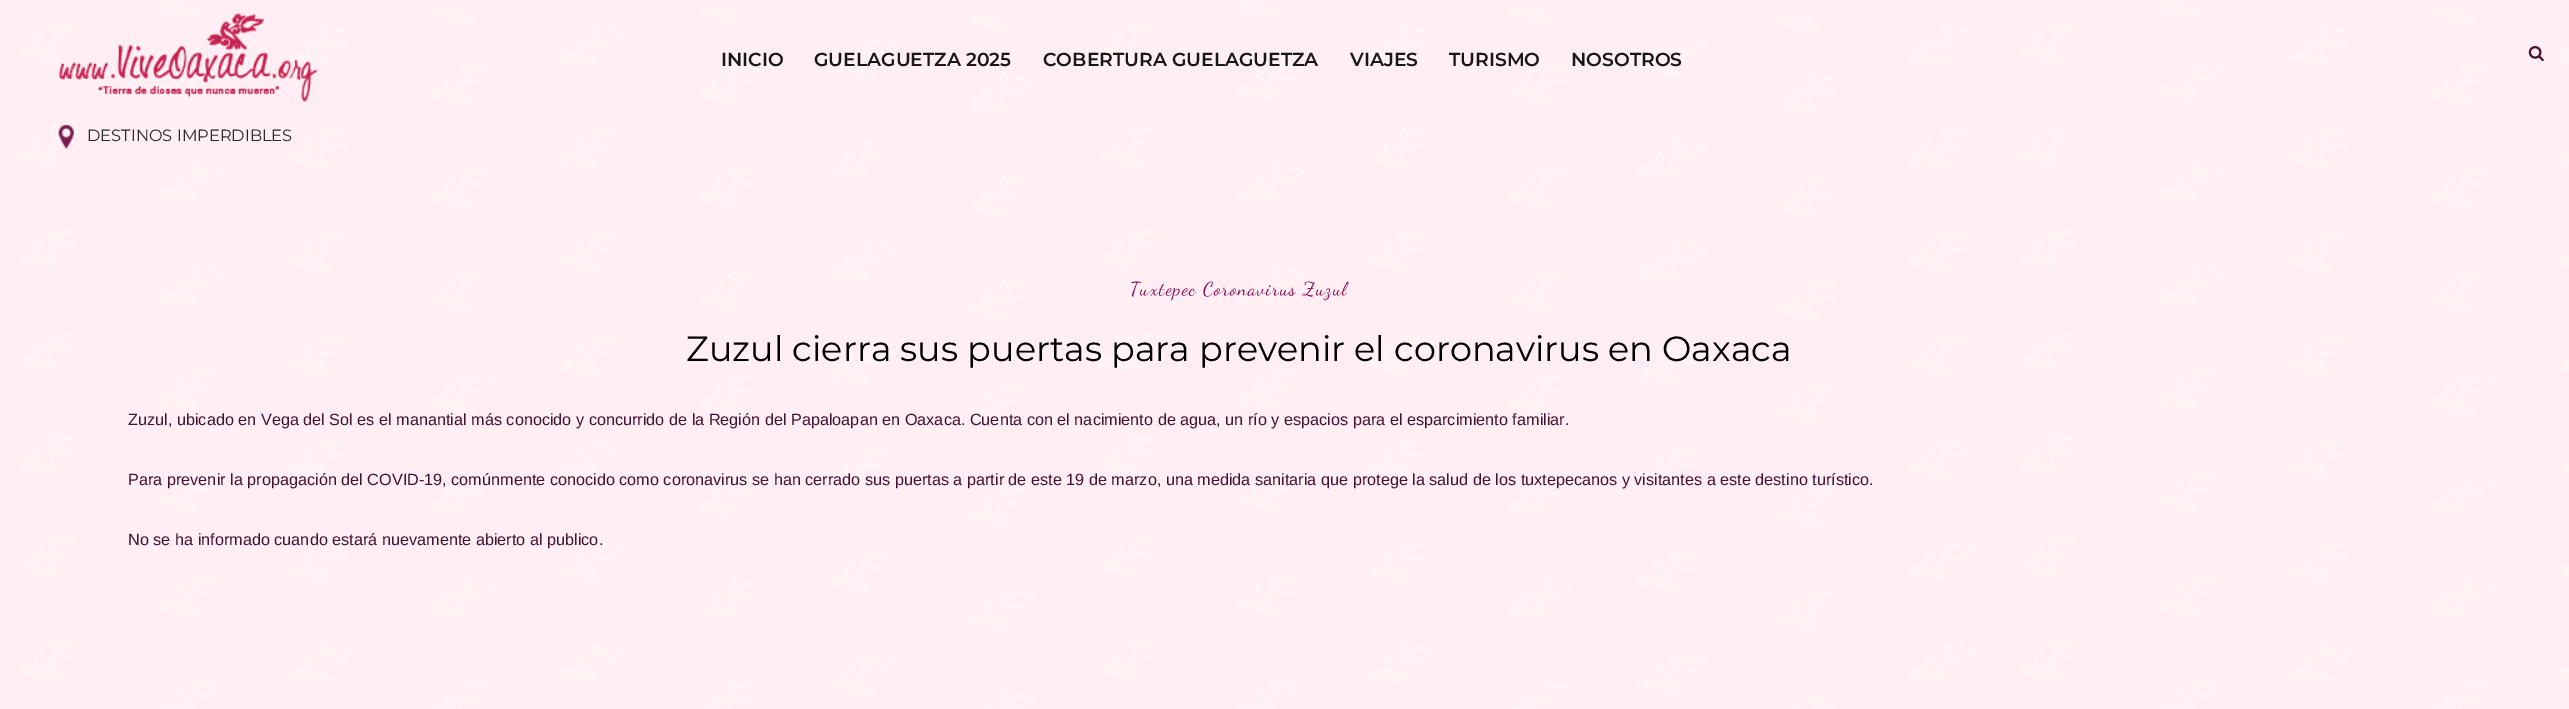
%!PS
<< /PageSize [2569 709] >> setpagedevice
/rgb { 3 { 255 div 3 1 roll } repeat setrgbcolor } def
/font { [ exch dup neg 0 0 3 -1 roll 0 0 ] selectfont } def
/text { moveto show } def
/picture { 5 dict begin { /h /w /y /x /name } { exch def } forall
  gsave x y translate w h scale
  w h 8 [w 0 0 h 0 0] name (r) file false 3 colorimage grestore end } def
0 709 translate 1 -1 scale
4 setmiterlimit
255 255 255 rgb
0 0 2569 709 rectfill
(img_01.rgb) 0 0 2569 709 picture
(img_02.rgb) 2528 46 16 16 picture
(img_03.rgb) 58 13 260 89 picture
(img_04.rgb) 58 124 16 25 picture
/Montserrat-SemiBold 18.75 font
23 23 23 rgb
(INICIO) 721 66 text
(GUELAGUETZA 2025) 814 66 text
(COBERTURA GUELAGUETZA) 1043 66 text
(VIAJES) 1350 66 text
(TURISMO) 1449 66 text
(NOSOTROS) 1571 66 text
/Montserrat-Regular 16.25 font
40 40 40 rgb
(DESTINOS IMPERDIBLES) 87 141 text
/DancingScript-Regular 18.75 font
138 7 81 rgb
1130 295 moveto 1.25 0 (Tuxtepec Coronavirus Zuzul) ashow
/Montserrat-Regular 35 font
0 0 0 rgb
(Zuzul cierra sus puertas para prevenir el coronavirus en Oaxaca) 686 361 text
/LiberationSans-Regular 16.25 font
68 17 48 rgb
(Zuzul, ubicado en Vega del Sol es el manantial más conocido y concurrido de la Región del Papaloapan en Oaxaca. Cuenta con el nacimiento de agua, un río y espacios para el esparcimiento familiar.) 128 425 text
(Para prevenir la propagación del COVID-19, comúnmente conocido como coronavirus se han cerrado sus puertas a partir de este 19 de marzo, una medida sanitaria que protege la salud de los tuxtepecanos y visitantes a este destino turístico.) 128 485 text
(No se ha informado cuando estará nuevamente abierto al publico.) 128 545 text
showpage
